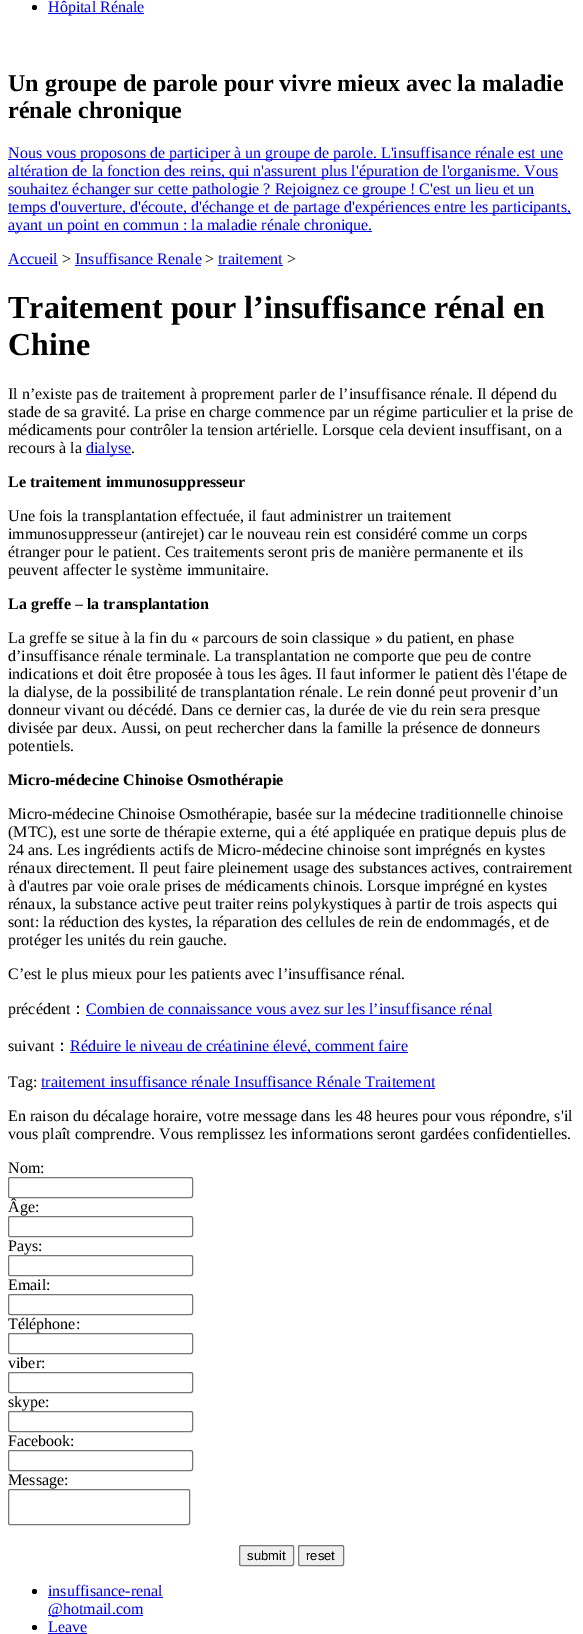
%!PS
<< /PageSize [583 1634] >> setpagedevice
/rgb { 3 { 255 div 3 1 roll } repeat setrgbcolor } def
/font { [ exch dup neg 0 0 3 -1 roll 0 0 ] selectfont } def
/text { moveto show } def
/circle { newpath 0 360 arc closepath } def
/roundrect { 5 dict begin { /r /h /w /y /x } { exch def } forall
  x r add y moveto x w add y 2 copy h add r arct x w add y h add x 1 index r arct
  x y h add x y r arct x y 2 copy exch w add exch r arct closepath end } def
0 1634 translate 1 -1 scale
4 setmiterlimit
255 255 255 rgb
0 0 583 1634 rectfill
0 0 0 rgb
34.5 7.5 2.5 circle fill
0 0 238 rgb
48 13 96 1 rectfill
8 159 555 1 rectfill
8 177 550 1 rectfill
8 195 526 1 rectfill
8 213 563 1 rectfill
8 231 364 1 rectfill
8 265 50 1 rectfill
75 265 126 1 rectfill
218 265 65 1 rectfill
86 454 45 1 rectfill
86 1015 406 1 rectfill
70 1052 338 1 rectfill
41 1088 394 1 rectfill
118 118 118 rgb
8.5 1177.5 184 20 1.5 roundrect stroke
8.5 1216.5 184 20 1.5 roundrect stroke
8.5 1255.5 184 20 1.5 roundrect stroke
8.5 1294.5 184 20 1.5 roundrect stroke
8.5 1333.5 184 20 1.5 roundrect stroke
8.5 1372.5 184 20 1.5 roundrect stroke
8.5 1411.5 184 20 1.5 roundrect stroke
8.5 1450.5 184 20 1.5 roundrect stroke
8.5 1489.5 181 35 1.5 roundrect stroke
239 239 239 rgb
239.5 1545.5 54 20 1.5 roundrect gsave fill grestore
118 118 118 rgb
stroke
239 239 239 rgb
298.5 1545.5 45 20 1.5 roundrect gsave fill grestore
118 118 118 rgb
stroke
0 0 0 rgb
34.5 1591.5 2.5 circle fill
0 0 238 rgb
48 1597 115 1 rectfill
48 1615 95 1 rectfill
0 0 0 rgb
34.5 1627.5 2.5 circle fill
0 0 238 rgb
48 1633 39 1 rectfill
/LiberationSerif-Regular 16 font
(Hôpital Rénale) 48 12 text
/LiberationSerif-Bold 24 font
0 0 0 rgb
(Un groupe de parole pour vivre mieux avec la maladie) 8 91 text
(rénale chronique) 8 118 text
/LiberationSerif-Regular 16 font
0 0 238 rgb
(Nous vous proposons de participer à un groupe de parole. L'insuffisance rénale est une) 8 158 text
(altération de la fonction des reins, qui n'assurent plus l'épuration de l'organisme. Vous) 8 176 text
(souhaitez échanger sur cette pathologie ? Rejoignez ce groupe ! C'est un lieu et un) 8 194 text
(temps d'ouverture, d'écoute, d'échange et de partage d'expériences entre les participants,) 8 212 text
(ayant un point en commun : la maladie rénale chronique.) 8 230 text
(Accueil) 8 264 text
0 0 0 rgb
(>) 62 264 text
0 0 238 rgb
(Insuffisance Renale) 75 264 text
0 0 0 rgb
(>) 205 264 text
0 0 238 rgb
(traitement) 218 264 text
0 0 0 rgb
(>) 287 264 text
/LiberationSerif-Bold 32 font
(Traitement pour l’insuffisance rénal en) 8 318 text
(Chine) 8 355 text
/LiberationSerif-Regular 16 font
(Il n’existe pas de traitement à proprement parler de l’insuffisance rénale. Il dépend du) 8 399 text
(stade de sa gravité. La prise en charge commence par un régime particulier et la prise de) 8 417 text
(médicaments pour contrôler la tension artérielle. Lorsque cela devient insuffisant, on a) 8 435 text
(recours à la) 8 453 text
0 0 238 rgb
(dialyse) 86 453 text
0 0 0 rgb
(.) 131 453 text
/LiberationSerif-Bold 16 font
(Le traitement immunosuppresseur) 8 487 text
/LiberationSerif-Regular 16 font
(Une fois la transplantation effectuée, il faut administrer un traitement) 8 521 text
(immunosuppresseur \(antirejet\) car le nouveau rein est considéré comme un corps) 8 539 text
(étranger pour le patient. Ces traitements seront pris de manière permanente et ils) 8 557 text
(peuvent affecter le système immunitaire.) 8 575 text
/LiberationSerif-Bold 16 font
(La greffe – la transplantation) 8 609 text
/LiberationSerif-Regular 16 font
(La greffe se situe à la fin du « parcours de soin classique » du patient, en phase) 8 643 text
(d’insuffisance rénale terminale. La transplantation ne comporte que peu de contre) 8 661 text
(indications et doit être proposée à tous les âges. Il faut informer le patient dès l'étape de) 8 679 text
(la dialyse, de la possibilité de transplantation rénale. Le rein donné peut provenir d’un) 8 697 text
(donneur vivant ou décédé. Dans ce dernier cas, la durée de vie du rein sera presque) 8 715 text
(divisée par deux. Aussi, on peut rechercher dans la famille la présence de donneurs) 8 733 text
(potentiels.) 8 751 text
/LiberationSerif-Bold 16 font
(Micro-médecine Chinoise Osmothérapie) 8 785 text
/LiberationSerif-Regular 16 font
(Micro-médecine Chinoise Osmothérapie, basée sur la médecine traditionnelle chinoise) 8 819 text
(\(MTC\), est une sorte de thérapie externe, qui a été appliquée en pratique depuis plus de) 8 837 text
(24 ans. Les ingrédients actifs de Micro-médecine chinoise sont imprégnés en kystes) 8 855 text
(rénaux directement. Il peut faire pleinement usage des substances actives, contrairement) 8 873 text
(à d'autres par voie orale prises de médicaments chinois. Lorsque imprégné en kystes) 8 891 text
(rénaux, la substance active peut traiter reins polykystiques à partir de trois aspects qui) 8 909 text
(sont: la réduction des kystes, la réparation des cellules de rein de endommagés, et de) 8 927 text
(protéger les unités du rein gauche.) 8 945 text
(C’est le plus mieux pour les patients avec l’insuffisance rénal.) 8 979 text
(précédent) 8 1014 text
/WenQuanYiZenHei-Medium 16 font
(：) 70 1014 text
/LiberationSerif-Regular 16 font
0 0 238 rgb
(Combien de connaissance vous avez sur les l’insuffisance rénal) 86 1014 text
0 0 0 rgb
(suivant) 8 1051 text
/WenQuanYiZenHei-Medium 16 font
(：) 54 1051 text
/LiberationSerif-Regular 16 font
0 0 238 rgb
(Réduire le niveau de créatinine élevé, comment faire) 70 1051 text
0 0 0 rgb
(Tag:) 8 1087 text
0 0 238 rgb
(traitement insuffisance rénale Insuffisance Rénale Traitement) 41 1087 text
0 0 0 rgb
(En raison du décalage horaire, votre message dans les 48 heures pour vous répondre, s'il) 8 1121 text
(vous plaît comprendre. Vous remplissez les informations seront gardées confidentielles.) 8 1139 text
(Nom:) 8 1173 text
(Âge:) 8 1212 text
(Pays:) 8 1251 text
(Email:) 8 1290 text
(Téléphone:) 8 1329 text
(viber:) 8 1368 text
(skype:) 8 1407 text
(Facebook:) 8 1446 text
(Message:) 8 1485 text
/LiberationSans-Regular 13 font
(submit) 247 1560 text
(reset) 306 1560 text
/LiberationSerif-Regular 16 font
0 0 238 rgb
(insuffisance-renal) 48 1596 text
(@hotmail.com) 48 1614 text
(Leave) 48 1632 text
showpage
